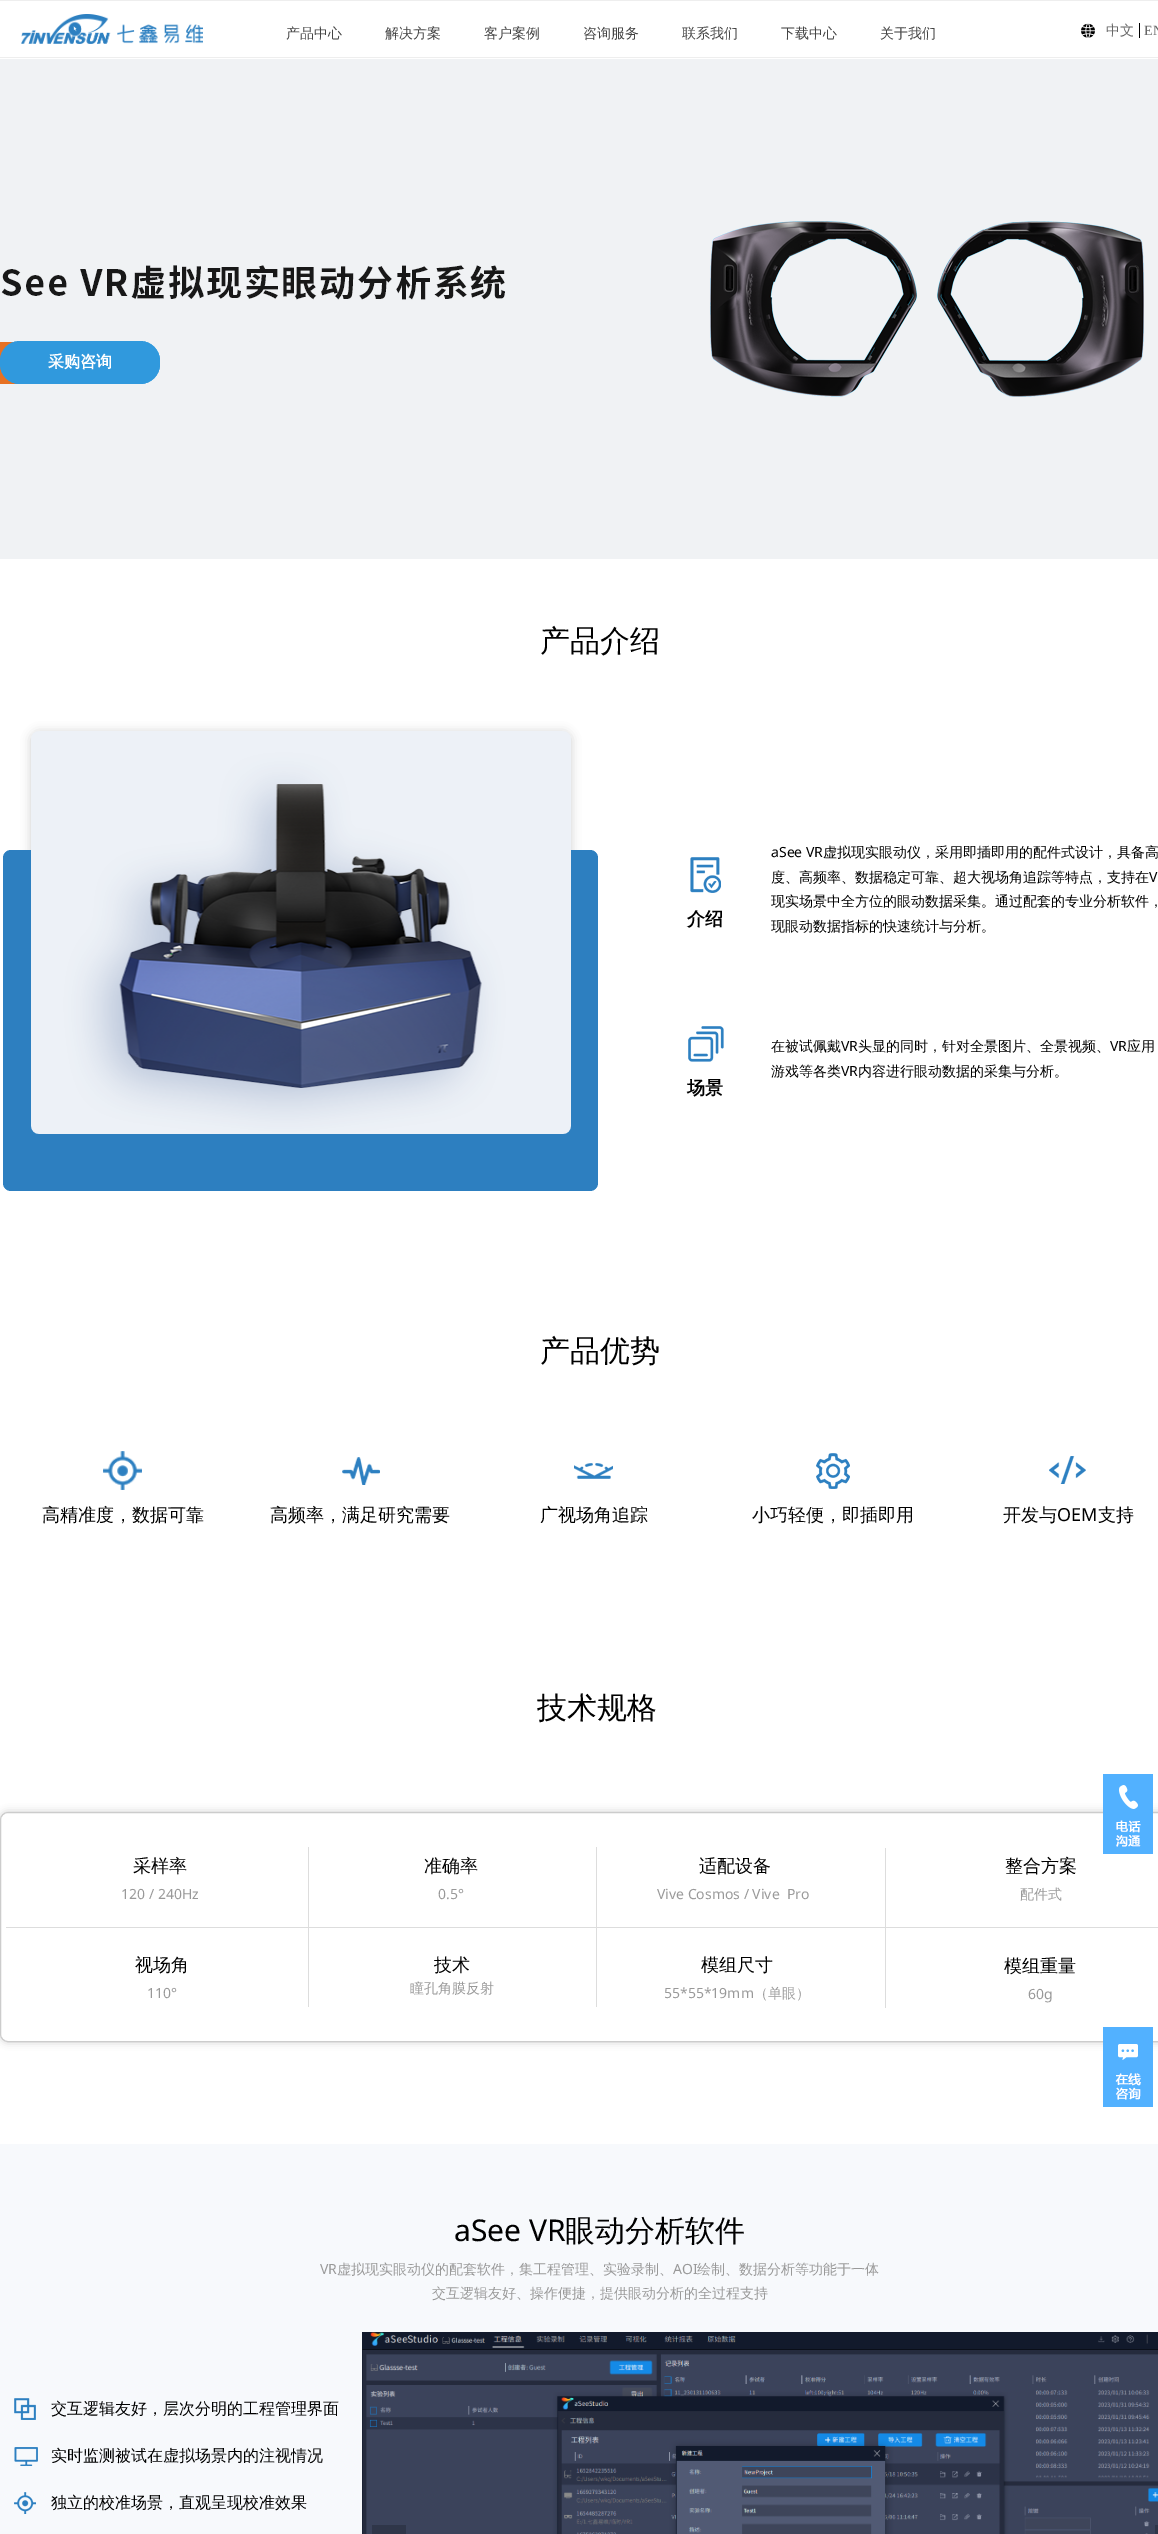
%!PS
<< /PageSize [1158 2534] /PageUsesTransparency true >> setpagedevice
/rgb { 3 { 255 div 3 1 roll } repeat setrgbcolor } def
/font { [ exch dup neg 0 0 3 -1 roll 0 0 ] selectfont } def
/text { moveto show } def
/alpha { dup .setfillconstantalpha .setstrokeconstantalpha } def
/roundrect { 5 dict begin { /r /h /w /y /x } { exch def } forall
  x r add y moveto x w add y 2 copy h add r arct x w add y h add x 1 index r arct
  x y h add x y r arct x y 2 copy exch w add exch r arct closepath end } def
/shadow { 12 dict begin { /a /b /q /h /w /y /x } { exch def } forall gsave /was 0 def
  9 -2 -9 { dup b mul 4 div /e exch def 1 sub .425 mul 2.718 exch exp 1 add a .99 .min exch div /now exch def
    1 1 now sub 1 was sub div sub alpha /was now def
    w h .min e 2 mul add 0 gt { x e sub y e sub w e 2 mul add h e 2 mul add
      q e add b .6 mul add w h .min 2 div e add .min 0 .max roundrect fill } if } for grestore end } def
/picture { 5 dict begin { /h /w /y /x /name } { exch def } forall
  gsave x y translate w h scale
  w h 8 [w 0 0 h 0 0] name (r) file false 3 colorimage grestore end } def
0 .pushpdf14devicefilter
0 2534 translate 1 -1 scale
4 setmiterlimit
255 255 255 rgb
0 0 1158 2534 rectfill
238 238 238 rgb
0 0 1158 1 rectfill
0 57 1158 1 rectfill
(img_01.rgb) 21 14 182 30 picture
(img_02.rgb) 1081 23 14 15 picture
0 0 0 rgb
1139 23 1 15 rectfill
(img_03.rgb) 0 59 1158 500 picture
48 153 221 rgb
0 341 160 43 20 roundrect fill
20 341 moveto 120 0 rlineto 11 0 20 9 20 20 rcurveto 0 3 rlineto 0 11 -9 20 -20 20 rcurveto -120 0 rlineto -11 0 -20 -9 -20 -20 rcurveto 0 -3 rlineto 0 -11 9 -20 20 -20 rcurveto closepath 20 341 moveto 120 0 rlineto 10 0 19 9 19 20 rcurveto 0 3 rlineto 0 10 -9 19 -19 19 rcurveto -120 0 rlineto -11 0 -20 -9 -20 -19 rcurveto 0 -3 rlineto 0 -11 9 -20 20 -20 rcurveto closepath eofill
204 204 204 rgb
31 732 540 190 8 5 1 shadow
238 238 238 rgb
31.5 732.5 539 189 7.5 roundrect stroke
45 127 192 rgb
3 850 595 341 8 roundrect fill
(img_04.rgb) 31 731 540 403 picture
(img_05.rgb) 690 857 31 36 picture
(img_06.rgb) 688 1026 36 36 picture
(img_07.rgb) 103 1451 39 39 picture
(img_08.rgb) 342 1457 38 28 picture
(img_09.rgb) 574 1463 39 16 picture
(img_10.rgb) 816 1453 34 36 picture
(img_11.rgb) 1049 1456 37 28 picture
204 204 204 rgb
0 1812 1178 230 8 4 1 shadow
255 255 255 rgb
0.5 1812.5 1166 229 7.5 roundrect gsave fill grestore
204 204 204 rgb
stroke
221 221 221 rgb
308 1847 1 160 rectfill
596 1847 1 160 rectfill
885 1848 1 160 rectfill
6 1927 1152 1 rectfill
247 249 252 rgb
0 2144 1158 390 rectfill
(img_12.rgb) 14 2398 22 22 picture
(img_13.rgb) 362 2332 796 202 picture
47 54 73 rgb
372 2525 34 9 rectfill
1155 2525 3 9 rectfill
(img_14.rgb) 14 2447 24 19 picture
(img_15.rgb) 14 2492 22 22 picture
(img_16.rgb) 1103 1774 50 80 picture
(img_17.rgb) 1103 2027 50 80 picture
/WenQuanYiZenHei-Medium 14 font
102 102 102 rgb
(中文) 1106 35 text
/LiberationSerif-Regular 14 font
(EN) 1144 35 text
/WenQuanYiZenHei-Medium 14 font
68 68 68 rgb
(产品中心) 286 38 text
(解决方案) 385 38 text
(客户案例) 484 38 text
(咨询服务) 583 38 text
(联系我们) 682 38 text
(下载中心) 781 38 text
(关于我们) 880 38 text
/WenQuanYiZenHei-Bold 16 font
255 255 255 rgb
(采购咨询) 48 367 text
/WenQuanYiZenHei-Medium 30 font
0 0 0 rgb
(产品介绍) 540 651 text
/NotoSans-Regular 14 font
(aSee VR) 771 857 text
/WenQuanYiZenHei-Medium 14 font
(虚拟现实眼动仪，采用即插即用的配件式设计，具备高) 823 857 text
(度、高频率、数据稳定可靠、超大视场角追踪等特点，支持在) 771 882 text
/NotoSans-Regular 14 font
(V) 1149 882 text
/WenQuanYiZenHei-Medium 14 font
(现实场景中全方位的眼动数据采集。通过配套的专业分析软件，) 771 906 text
(现眼动数据指标的快速统计与分析。) 771 931 text
/WenQuanYiZenHei-Bold 18 font
(介绍) 687 925 text
/WenQuanYiZenHei-Medium 14 font
(在被试佩戴) 771 1051 text
/NotoSans-Regular 14 font
(VR) 841 1051 text
/WenQuanYiZenHei-Medium 14 font
(头显的同时，针对全景图片、全景视频、) 858 1051 text
/NotoSans-Regular 14 font
(VR) 1110 1051 text
/WenQuanYiZenHei-Medium 14 font
(应用) 1127 1051 text
(游戏等各类) 771 1076 text
/NotoSans-Regular 14 font
(VR) 841 1076 text
/WenQuanYiZenHei-Medium 14 font
(内容进行眼动数据的采集与分析。) 858 1076 text
/WenQuanYiZenHei-Bold 18 font
(场景) 687 1094 text
/WenQuanYiZenHei-Medium 30 font
(产品优势) 540 1361 text
/WenQuanYiZenHei-Medium 18 font
(高精准度，数据可靠) 42 1521 text
(高频率，满足研究需要) 270 1521 text
(广视场角追踪) 540 1521 text
(小巧轻便，即插即用) 752 1521 text
(开发与) 1003 1521 text
/NotoSans-Regular 18 font
(OEM) 1057 1521 text
/WenQuanYiZenHei-Medium 18 font
(支持) 1098 1521 text
/WenQuanYiZenHei-Medium 30 font
(技术规格) 537 1718 text
/WenQuanYiZenHei-Medium 18 font
(采样率) 133 1872 text
/NotoSans-Regular 14 font
153 153 153 rgb
(120 / 240Hz) 121 1899 text
/WenQuanYiZenHei-Medium 18 font
0 0 0 rgb
(准确率) 424 1872 text
/NotoSans-Regular 14 font
153 153 153 rgb
(0.5°) 438 1899 text
/WenQuanYiZenHei-Medium 18 font
0 0 0 rgb
(适配设备) 699 1872 text
/NotoSans-Regular 14 font
153 153 153 rgb
(Vive Cosmos / Vive  Pro) 657 1899 text
/WenQuanYiZenHei-Medium 18 font
0 0 0 rgb
(整合方案) 1005 1872 text
/WenQuanYiZenHei-Medium 14 font
153 153 153 rgb
(配件式) 1020 1899 text
/WenQuanYiZenHei-Medium 18 font
0 0 0 rgb
(视场角) 135 1971 text
/NotoSans-Regular 14 font
153 153 153 rgb
(110°) 147 1998 text
/WenQuanYiZenHei-Medium 18 font
0 0 0 rgb
(技术) 434 1971 text
/WenQuanYiZenHei-Medium 14 font
153 153 153 rgb
(瞳孔角膜反射) 410 1993 text
/WenQuanYiZenHei-Medium 18 font
0 0 0 rgb
(模组尺寸) 701 1971 text
/NotoSans-Regular 14 font
153 153 153 rgb
(55*55*19mm) 664 1998 text
/WenQuanYiZenHei-Medium 14 font
(（单眼）) 754 1998 text
/WenQuanYiZenHei-Medium 18 font
0 0 0 rgb
(模组重量) 1004 1972 text
/NotoSans-Regular 14 font
153 153 153 rgb
(60g) 1028 1999 text
/NotoSans-Regular 30 font
0 0 0 rgb
(aSee VR) 454 2241 text
/WenQuanYiZenHei-Medium 30 font
(眼动分析软件) 565 2241 text
/NotoSans-Regular 14 font
153 153 153 rgb
(VR) 320 2274 text
/WenQuanYiZenHei-Medium 14 font
(虚拟现实眼动仪的配套软件，集工程管理、实验录制、) 337 2274 text
/NotoSans-Regular 14 font
(AOI) 673 2274 text
/WenQuanYiZenHei-Medium 14 font
(绘制、数据分析等功能于一体) 697 2274 text
(交互逻辑友好、操作便捷，提供眼动分析的全过程支持) 432 2298 text
/WenQuanYiZenHei-Medium 16 font
0 0 0 rgb
(交互逻辑友好，层次分明的工程管理界面) 51 2414 text
(实时监测被试在虚拟场景内的注视情况) 51 2461 text
(独立的校准场景，直观呈现校准效果) 51 2508 text
.poppdf14devicefilter showpage
